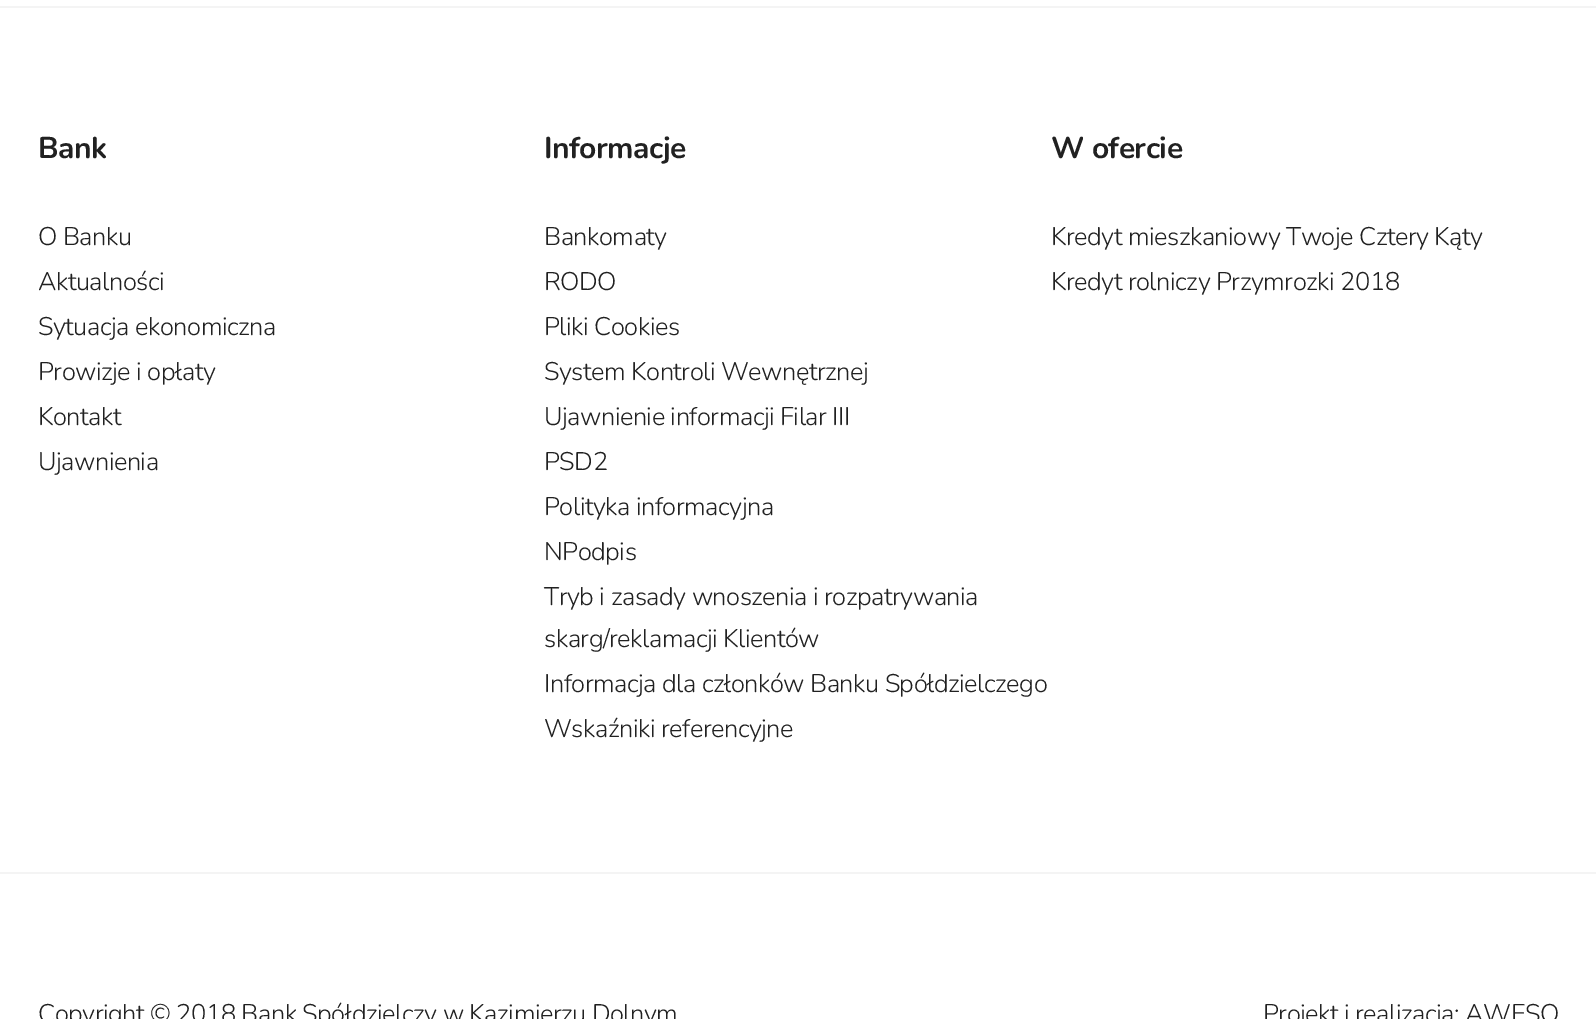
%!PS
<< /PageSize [1596 1019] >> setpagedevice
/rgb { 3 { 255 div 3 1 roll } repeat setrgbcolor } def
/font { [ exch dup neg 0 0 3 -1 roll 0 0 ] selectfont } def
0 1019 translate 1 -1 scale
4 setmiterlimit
255 255 255 rgb
0 0 1596 1019 rectfill
244 244 244 rgb
0 6 1596 2 rectfill
0 872 1596 2 rectfill
/Nunito-Bold 30 font
33 33 33 rgb
38 158 moveto -0.5 0 (Bank) ashow
/Nunito-Light 25.5 font
38 245 moveto -0.5 0 (O Banku) ashow
38 290 moveto -0.5 0 (Aktualności) ashow
38 335 moveto -0.5 0 (Sytuacja ekonomiczna) ashow
38 380 moveto -0.5 0 (Prowizje i opłaty) ashow
38 425 moveto -0.5 0 (Kontakt) ashow
38 470 moveto -0.5 0 (Ujawnienia) ashow
/Nunito-Bold 30 font
544 158 moveto -0.5 0 (Informacje) ashow
/Nunito-Light 25.5 font
544 245 moveto -0.5 0 (Bankomaty) ashow
544 290 moveto -0.5 0 (RODO) ashow
544 335 moveto -0.5 0 (Pliki Cookies) ashow
544 380 moveto -0.5 0 (System Kontroli Wewnętrznej) ashow
544 425 moveto -0.5 0 (Ujawnienie informacji Filar III) ashow
544 470 moveto -0.5 0 (PSD2) ashow
544 515 moveto -0.5 0 (Polityka informacyjna) ashow
544 560 moveto -0.5 0 (NPodpis) ashow
544 605 moveto -0.5 0 (Tryb i zasady wnoszenia i rozpatrywania) ashow
544 647 moveto -0.5 0 (skarg/reklamacji Klientów) ashow
544 692 moveto -0.5 0 (Informacja dla członków Banku Spółdzielczego) ashow
544 737 moveto -0.5 0 (Wskaźniki referencyjne) ashow
/Nunito-Bold 30 font
1051 158 moveto -0.5 0 (W ofercie) ashow
/Nunito-Light 25.5 font
1051 245 moveto -0.5 0 (Kredyt mieszkaniowy Twoje Cztery Kąty) ashow
1051 290 moveto -0.5 0 (Kredyt rolniczy Przymrozki 2018) ashow
38 1022 moveto -0.5 0 (Copyright © 2018 Bank Spółdzielczy w Kazimierzu Dolnym) ashow
1263 1022 moveto -0.5 0 (Projekt i realizacja: AWESO) ashow
showpage
